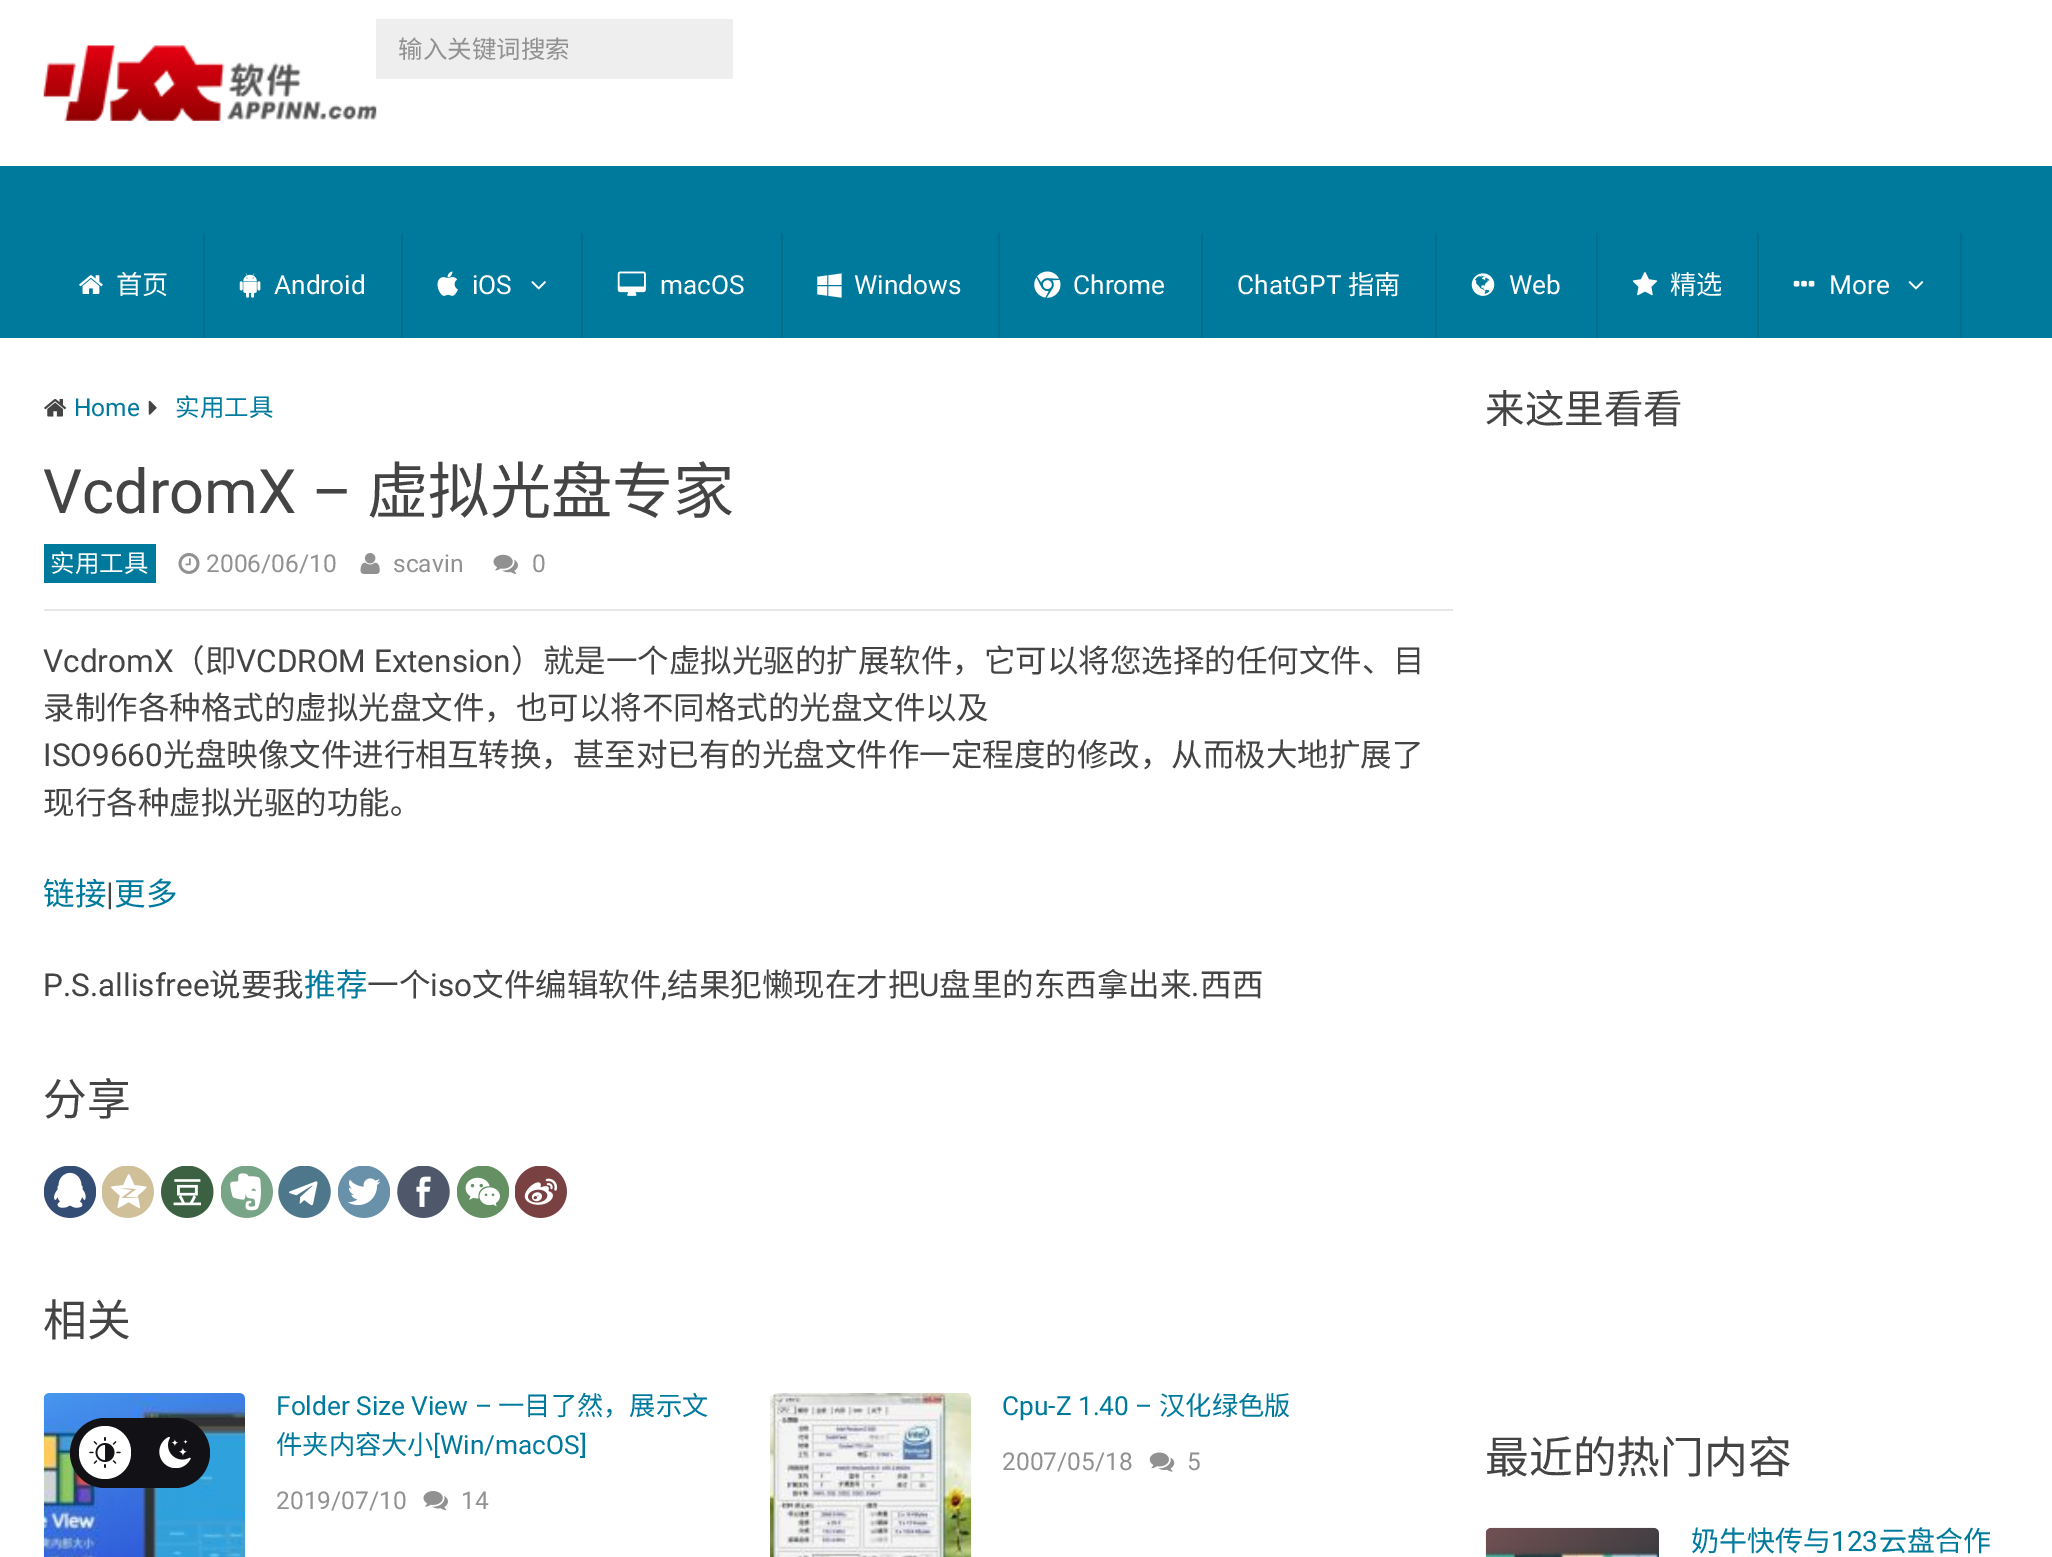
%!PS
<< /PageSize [2052 1557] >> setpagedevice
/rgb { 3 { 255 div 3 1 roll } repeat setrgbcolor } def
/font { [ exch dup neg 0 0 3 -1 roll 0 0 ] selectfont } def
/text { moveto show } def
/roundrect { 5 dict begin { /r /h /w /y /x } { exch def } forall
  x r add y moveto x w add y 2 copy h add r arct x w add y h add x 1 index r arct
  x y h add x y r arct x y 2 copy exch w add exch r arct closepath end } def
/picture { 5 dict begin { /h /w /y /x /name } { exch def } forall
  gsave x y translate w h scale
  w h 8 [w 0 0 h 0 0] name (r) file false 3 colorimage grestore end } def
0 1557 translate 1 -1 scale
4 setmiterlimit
255 255 255 rgb
0 0 2052 1557 rectfill
(img_01.rgb) 43 45 334 76 picture
238 238 238 rgb
376 19 357 60 rectfill
0 122 156 rgb
0 166 2052 172 rectfill
0 110 140 rgb
203 233 2 105 rectfill
(img_02.rgb) 79 275 24 19 picture
401 233 2 105 rectfill
(img_03.rgb) 239 273 22 25 picture
581 233 2 105 rectfill
(img_04.rgb) 437 271 21 25 picture
(img_05.rgb) 531 281 15 9 picture
781 233 2 105 rectfill
(img_06.rgb) 617 271 29 25 picture
998 233 2 105 rectfill
(img_07.rgb) 817 273 25 25 picture
1201 233 2 105 rectfill
(img_08.rgb) 1034 271 27 27 picture
1435 233 2 105 rectfill
1596 233 2 105 rectfill
(img_09.rgb) 1471 273 24 23 picture
1757 233 2 105 rectfill
(img_10.rgb) 1632 272 26 24 picture
1960 233 2 105 rectfill
(img_11.rgb) 1793 280 22 7 picture
(img_12.rgb) 1908 281 16 9 picture
(img_13.rgb) 44 399 23 18 picture
(img_14.rgb) 148 400 9 15 picture
230 230 230 rgb
44 609 1409 2 rectfill
0 122 156 rgb
44 544 112 39 rectfill
(img_15.rgb) 178 553 22 21 picture
(img_16.rgb) 360 553 20 21 picture
(img_17.rgb) 493 554 25 20 picture
(img_18.rgb) 44 1166 52 52 picture
(img_19.rgb) 102 1166 52 52 picture
(img_20.rgb) 161 1166 53 52 picture
(img_21.rgb) 221 1166 52 52 picture
(img_22.rgb) 278 1166 53 52 picture
(img_23.rgb) 338 1166 52 52 picture
(img_24.rgb) 397 1166 53 52 picture
(img_25.rgb) 457 1166 52 52 picture
(img_26.rgb) 515 1166 52 52 picture
(img_27.rgb) 43 1393 202 164 picture
(img_28.rgb) 423 1491 25 20 picture
(img_29.rgb) 770 1393 202 164 picture
(img_30.rgb) 1149 1452 26 20 picture
(img_31.rgb) 1485 1527 174 30 picture
18 17 22 rgb
70 1418 140 70 35 roundrect fill
255 255 255 rgb
79 1426 52 53 26 roundrect fill
(img_32.rgb) 89 1437 32 31 picture
(img_33.rgb) 159 1437 32 31 picture
/NotoSansCJKSC-Regular 24.5 font
145 145 145 rgb
(输入关键词搜索) 398 58 text
/NotoSansCJKSC-Regular 26.25 font
255 255 255 rgb
(首页) 116 294 text
/Roboto-Regular 26.25 font
(Android) 274 294 text
(iOS) 472 294 text
(macOS) 660 294 text
(Windows) 854 294 text
(Chrome) 1073 294 text
(ChatGPT) 1237 294 text
/NotoSansCJKSC-Regular 26.25 font
(指南) 1348 294 text
/Roboto-Regular 26.25 font
(Web) 1509 294 text
/NotoSansCJKSC-Regular 26.25 font
(精选) 1670 294 text
/Roboto-Regular 26.25 font
(More) 1829 294 text
/Roboto-Regular 24.5 font
0 122 156 rgb
(Home) 74 416 text
/NotoSansCJKSC-Regular 24.5 font
(实用工具) 175 416 text
/Roboto-Regular 61.25 font
68 68 68 rgb
(VcdromX –) 43 513 text
/NotoSansCJKSC-Regular 61.25 font
(虚拟光盘专家) 367 513 text
/NotoSansCJKSC-Regular 24.5 font
255 255 255 rgb
(实用工具) 50 572 text
/Roboto-Regular 24.5 font
145 145 145 rgb
(2006/06/10) 206 572 text
(scavin) 393 572 text
(0) 532 572 text
/Roboto-Regular 31.5 font
68 68 68 rgb
(VcdromX) 43 672 text
/NotoSansCJKSC-Regular 31.5 font
(（即) 173 672 text
/Roboto-Regular 31.5 font
(VCDROM Extension) 236 672 text
/NotoSansCJKSC-Regular 31.5 font
(）就是一个虚拟光驱的扩展软件，它可以将您选择的任何文件、目) 511 672 text
(录制作各种格式的虚拟光盘文件，也可以将不同格式的光盘文件以及) 43 719 text
/Roboto-Regular 31.5 font
(ISO9660) 43 766 text
/NotoSansCJKSC-Regular 31.5 font
(光盘映像文件进行相互转换，甚至对已有的光盘文件作一定程度的修改，从而极大地扩展了) 163 766 text
(现行各种虚拟光驱的功能。) 43 814 text
0 122 156 rgb
(链接) 43 905 text
/Roboto-Regular 31.5 font
68 68 68 rgb
(|) 106 905 text
/NotoSansCJKSC-Regular 31.5 font
0 122 156 rgb
(更多) 114 905 text
/Roboto-Regular 31.5 font
68 68 68 rgb
(P.S.allisfree) 43 996 text
/NotoSansCJKSC-Regular 31.5 font
(说要我) 209 996 text
0 122 156 rgb
(推荐) 304 996 text
68 68 68 rgb
(一个) 367 996 text
/Roboto-Regular 31.5 font
(iso) 430 996 text
/NotoSansCJKSC-Regular 31.5 font
(文件编辑软件) 472 996 text
/Roboto-Regular 31.5 font
(,) 661 996 text
/NotoSansCJKSC-Regular 31.5 font
(结果犯懒现在才把) 667 996 text
/Roboto-Regular 31.5 font
(U) 919 996 text
/NotoSansCJKSC-Regular 31.5 font
(盘里的东西拿出来) 939 996 text
/Roboto-Regular 31.5 font
(.) 1191 996 text
/NotoSansCJKSC-Regular 31.5 font
(西西) 1200 996 text
/NotoSansCJKSC-Regular 43.75 font
(分享) 43 1115 text
(相关) 43 1336 text
/Roboto-Regular 26.25 font
0 122 156 rgb
(Folder Size View –) 276 1415 text
/NotoSansCJKSC-Regular 26.25 font
(一目了然，展示文) 498 1415 text
(件夹内容大小) 276 1454 text
/Roboto-Regular 26.25 font
([Win/macOS]) 433 1454 text
/Roboto-Regular 24.5 font
145 145 145 rgb
(2019/07/10) 276 1509 text
(14) 461 1509 text
/Roboto-Regular 26.25 font
0 122 156 rgb
(Cpu-Z 1.40 –) 1002 1415 text
/NotoSansCJKSC-Regular 26.25 font
(汉化绿色版) 1159 1415 text
/Roboto-Regular 24.5 font
145 145 145 rgb
(2007/05/18) 1002 1470 text
(5) 1187 1470 text
gsave
1486 390 525 65 rectclip
/NotoSansCJKSC-Regular 39.5 font
68 68 68 rgb
(来这里看看) 1485 423 text
grestore
/NotoSansCJKSC-Regular 43.75 font
68 68 68 rgb
(最近的热门内容) 1485 1473 text
/NotoSansCJKSC-Regular 28 font
0 122 156 rgb
(奶牛快传与) 1691 1551 text
/Roboto-Regular 28 font
(123) 1831 1551 text
/NotoSansCJKSC-Regular 28 font
(云盘合作) 1879 1551 text
showpage
